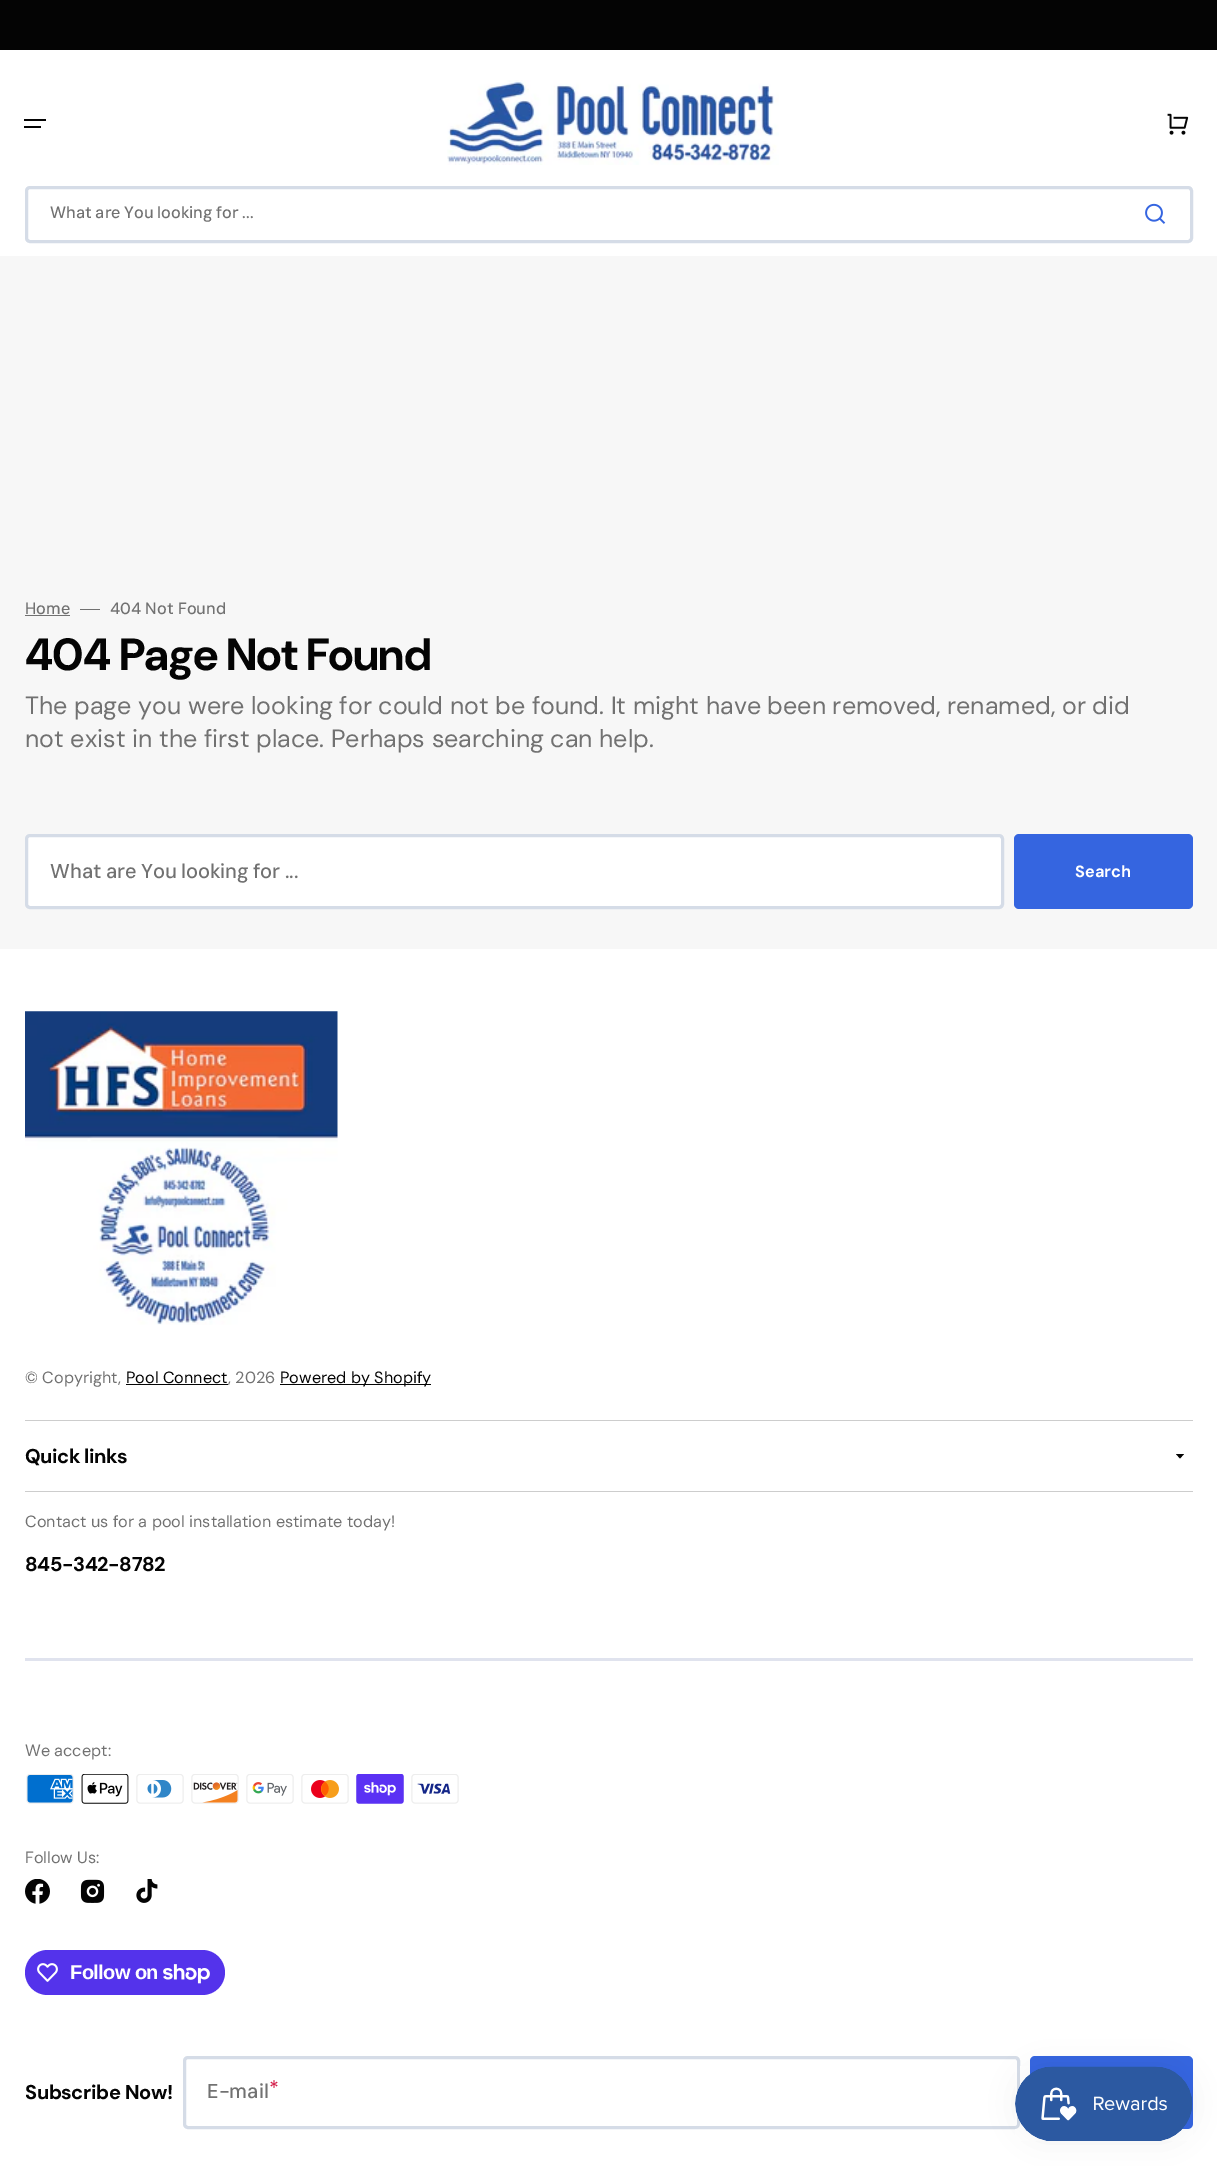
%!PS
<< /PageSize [1217 2166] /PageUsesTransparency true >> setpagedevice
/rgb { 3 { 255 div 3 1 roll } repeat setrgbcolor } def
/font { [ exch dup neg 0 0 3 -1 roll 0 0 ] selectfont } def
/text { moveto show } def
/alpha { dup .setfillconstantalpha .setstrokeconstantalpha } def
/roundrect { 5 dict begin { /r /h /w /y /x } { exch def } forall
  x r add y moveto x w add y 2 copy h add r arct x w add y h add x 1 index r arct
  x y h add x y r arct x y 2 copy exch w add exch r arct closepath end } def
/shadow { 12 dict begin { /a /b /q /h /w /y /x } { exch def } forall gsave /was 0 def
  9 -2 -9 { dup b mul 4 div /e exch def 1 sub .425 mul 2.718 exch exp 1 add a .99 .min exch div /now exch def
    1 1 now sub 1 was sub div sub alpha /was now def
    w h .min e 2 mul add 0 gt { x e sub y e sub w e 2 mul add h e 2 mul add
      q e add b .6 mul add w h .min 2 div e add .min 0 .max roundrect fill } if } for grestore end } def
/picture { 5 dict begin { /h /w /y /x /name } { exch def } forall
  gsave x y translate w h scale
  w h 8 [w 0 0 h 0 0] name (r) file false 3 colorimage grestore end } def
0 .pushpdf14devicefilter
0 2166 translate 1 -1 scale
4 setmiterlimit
247 247 247 rgb
0 0 1217 2166 rectfill
4 4 4 rgb
0 0 1217 50 rectfill
255 255 255 rgb
0 50 1217 206 rectfill
4 4 4 rgb
24 119 22 2 rectfill
24 126 17 2 rectfill
(img_01.rgb) 447 80 332 85 picture
(img_02.rgb) 1167 113 22 22 picture
213 220 231 rgb
3 setlinewidth
26.5 187.5 1165 54 3.5 roundrect stroke
(img_03.rgb) 1145 203 21 21 picture
113 113 113 rgb
25 615 45 1 rectfill
80 609 20 1 rectfill
255 255 255 rgb
26.5 835.5 976 72 3.5 roundrect gsave fill grestore
213 220 231 rgb
stroke
53 101 224 rgb
1014 834 179 75 5 roundrect fill
255 255 255 rgb
0 949 1217 1217 rectfill
(img_04.rgb) 25 1011 313 314 picture
4 4 4 rgb
126 1384 102 1 rectfill
280 1384 151 1 rectfill
205 205 205 rgb
25 1420 1168 1 rectfill
25 1491 1168 1 rectfill
4 4 4 rgb
1180 1458.5 moveto -4 -4.5 rlineto 8 0 rlineto closepath fill
224 227 238 rgb
25 1658 1168 3 rectfill
(img_05.rgb) 26 1774 48 30 picture
(img_06.rgb) 81 1774 48 30 picture
(img_07.rgb) 136 1774 48 30 picture
(img_08.rgb) 191 1774 48 30 picture
(img_09.rgb) 246 1774 48 30 picture
(img_10.rgb) 301 1774 48 30 picture
(img_11.rgb) 356 1774 48 30 picture
(img_12.rgb) 411 1774 48 30 picture
(img_13.rgb) 25 1879 25 25 picture
(img_14.rgb) 80 1879 25 24 picture
(img_15.rgb) 136 1879 22 24 picture
84 51 235 rgb
25 1950 200 45 22.5 roundrect fill
(img_16.rgb) 37 1963 21 19 picture
(img_17.rgb) 163 1964 47 20 picture
213 220 231 rgb
184.5 2057.5 834 70 3.5 roundrect stroke
53 101 224 rgb
1030 2056 163 73 5 roundrect fill
0 0 0 rgb
1015 2066 178 75 37.5 15.5 0.05 shadow
(img_18.rgb) 1015 2066 178 75 picture
/DMSans-Medium 16.25 font
113 113 113 rgb
50 218 moveto -0.5 0 32 (What are You looking for ...) widthshow
(Home) 25 614 text
(404 Not Found) 110 614 text
/DMSans-Bold 45 font
4 4 4 rgb
25 670 moveto -0.9 0 (404 Page Not Found) ashow
/DMSans-Regular 25 font
113 113 113 rgb
(The page you were looking for could not be found. It might have been removed, renamed, or did) 25 714 text
(not exist in the first place. Perhaps searching can help.) 25 747 text
/DMSans-Medium 20 font
50 878 moveto -1 0 32 (What are You looking for ...) widthshow
/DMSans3-Bold 16.25 font
255 255 255 rgb
(Search) 1075 877 text
/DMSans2-Regular 16.25 font
113 113 113 rgb
(© Copyright,) 25 1383 text
4 4 4 rgb
(Pool Connect) 126 1383 text
113 113 113 rgb
(, 2026) 228 1383 text
4 4 4 rgb
(Powered by Shopify) 280 1383 text
/DMSans2-Bold 20 font
25 1463 moveto -0.4 0 (Quick links) ashow
/DMSans2-Regular 16.25 font
113 113 113 rgb
(Contact us for a pool installation estimate today!) 25 1527 text
/DMSans2-Bold 20 font
4 4 4 rgb
25 1571 moveto -0.4 0 (845-342-8782) ashow
/DMSans2-Regular 16.25 font
113 113 113 rgb
(We accept:) 25 1756 text
(Follow Us:) 25 1863 text
/LiberationSans-Bold 20 font
255 255 255 rgb
70 1979 moveto -0.6 0 (Follow on) ashow
/DMSans2-Bold 20 font
4 4 4 rgb
25 2099 moveto -0.4 0 (Subscribe Now!) ashow
/DMSans-Medium 20 font
113 113 113 rgb
(E-mail) 207 2098 text
212 31 75 rgb
(*) 269 2095 text
.poppdf14devicefilter showpage
